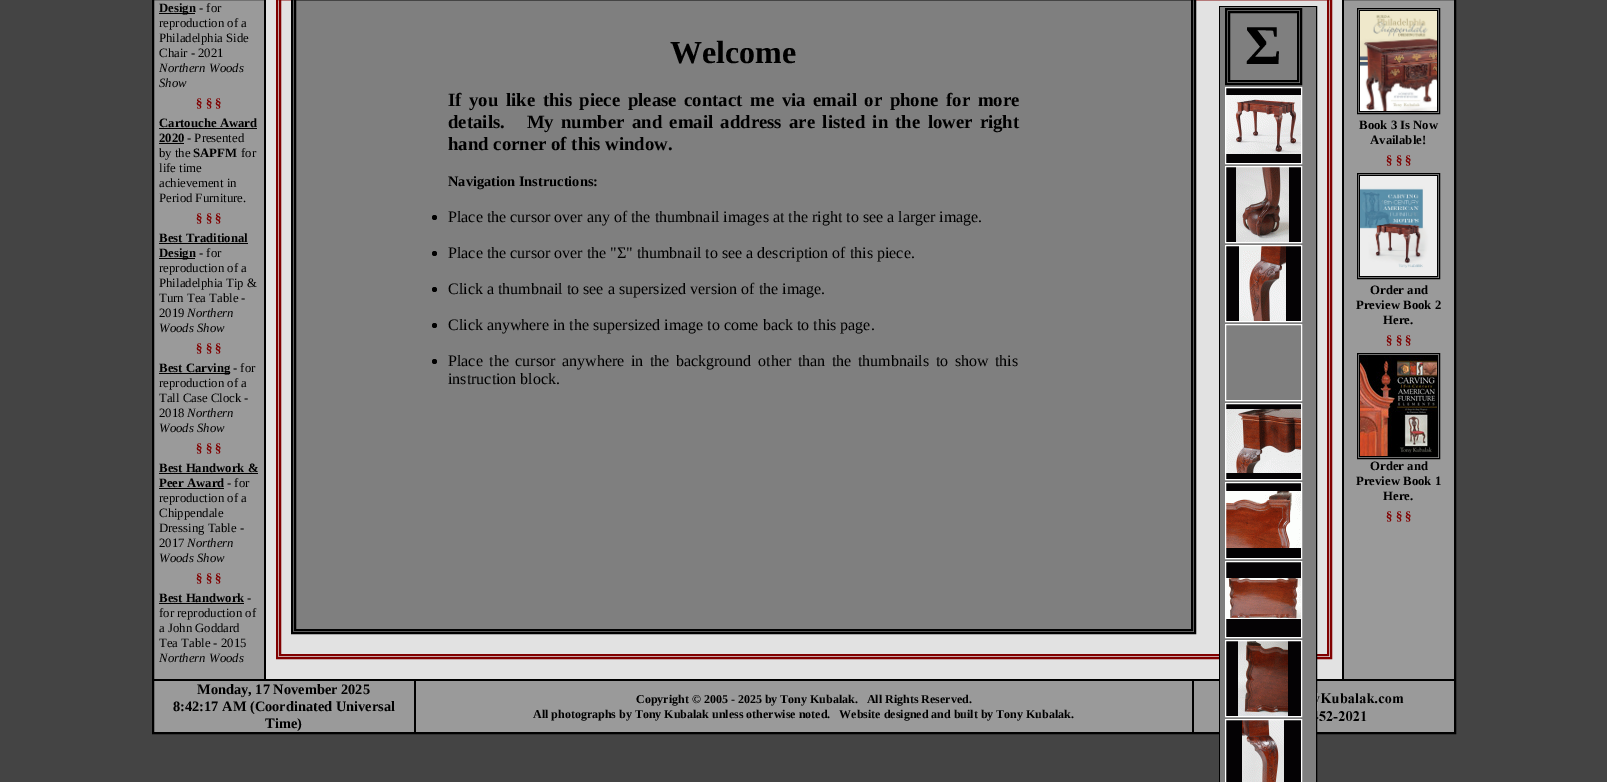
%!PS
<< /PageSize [1607 782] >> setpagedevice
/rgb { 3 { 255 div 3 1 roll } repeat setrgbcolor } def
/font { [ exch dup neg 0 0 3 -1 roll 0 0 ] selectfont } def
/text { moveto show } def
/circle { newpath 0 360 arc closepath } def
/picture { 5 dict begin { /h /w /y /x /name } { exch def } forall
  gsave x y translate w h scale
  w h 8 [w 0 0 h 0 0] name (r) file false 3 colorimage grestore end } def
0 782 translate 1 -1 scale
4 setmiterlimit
68 68 68 rgb
0 0 1607 782 rectfill
154 154 154 rgb
153 -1 moveto 1302 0 rlineto 0 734 rlineto -1302 0 rlineto closepath gsave fill grestore
0 0 0 rgb
2 setlinewidth
stroke
154 679 1300 2 rectfill
159 13 36 1 rectfill
159 128 98 1 rectfill
159 143 25 1 rectfill
159 243 89 1 rectfill
159 258 36 1 rectfill
159 373 71 1 rectfill
159 473 99 1 rectfill
159 488 65 1 rectfill
159 603 85 1 rectfill
226 226 226 rgb
266 0 1076 679 rectfill
0 0 0 rgb
1342 0 2 679 rectfill
264 0 2 679 rectfill
128 0 0 rgb
277 -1 1054 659 rectstroke
280 -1 1048 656 rectstroke
127 127 127 rgb
292 -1 moveto 903 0 rlineto 0 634 rlineto -903 0 rlineto closepath gsave fill grestore
0 0 0 rgb
stroke
295 -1 897 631 rectstroke
434.5 217.5 2.5 circle fill
434.5 253.5 2.5 circle fill
434.5 289.5 2.5 circle fill
434.5 325.5 2.5 circle fill
434.5 361.5 2.5 circle fill
1 setlinewidth
1219.5 6.5 97 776 rectstroke
127 127 127 rgb
1220 7 96 775 rectfill
0 0 0 rgb
2 setlinewidth
1226 9 75 75 rectstroke
1229 12 69 69 rectstroke
(img_01.rgb) 1226 88 75 75 picture
255 255 255 rgb
1 setlinewidth
1225.5 87.5 76 76 rectstroke
(img_02.rgb) 1226 167 75 75 picture
1225.5 166.5 76 76 rectstroke
(img_03.rgb) 1226 246 75 75 picture
1225.5 245.5 76 76 rectstroke
1225.5 324.5 76 76 rectstroke
(img_04.rgb) 1226 404 75 75 picture
1225.5 403.5 76 76 rectstroke
(img_05.rgb) 1226 483 75 75 picture
1225.5 482.5 76 76 rectstroke
(img_06.rgb) 1226 562 75 75 picture
1225.5 561.5 76 76 rectstroke
(img_07.rgb) 1226 641 75 75 picture
1225.5 640.5 76 76 rectstroke
(img_08.rgb) 1226 720 75 62 picture
1225.5 719.5 76 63 rectstroke
0 0 0 rgb
1357.5 8.5 82 105 rectstroke
1359.5 10.5 78 101 rectstroke
(img_09.rgb) 1360 11 77 100 picture
1357.5 173.5 82 105 rectstroke
1359.5 175.5 78 101 rectstroke
(img_10.rgb) 1360 176 77 100 picture
1357.5 353.5 82 105 rectstroke
1359.5 355.5 78 101 rectstroke
(img_11.rgb) 1360 356 77 100 picture
1192 681 2 51 rectfill
414 681 2 51 rectfill
(img_12.rgb) 1317 693 87 28 picture
/LiberationSerif-Bold 12.75 font
(Design) 159 12 text
/LiberationSerif-Regular 12.75 font
(- for) 199 12 text
(reproduction of a) 159 27 text
(Philadelphia Side) 159 42 text
(Chair - 2021) 159 57 text
/LiberationSerif-Italic 12.75 font
(Northern Woods) 159 72 text
(Show) 159 87 text
/LiberationSerif-Bold 12.75 font
128 0 0 rgb
(§ § §) 196 107 text
0 0 0 rgb
(Cartouche Award) 159 127 text
(2020) 159 142 text
/LiberationSerif-Regular 12.75 font
(- Presented) 187 142 text
(by the) 159 157 text
/LiberationSerif-Bold 12.75 font
(SAPFM) 193 157 text
/LiberationSerif-Regular 12.75 font
(for) 241 157 text
(life time) 159 172 text
(achievement in) 159 187 text
(Period Furniture.) 159 202 text
/LiberationSerif-Bold 12.75 font
128 0 0 rgb
(§ § §) 196 222 text
0 0 0 rgb
(Best Traditional) 159 242 text
(Design) 159 257 text
/LiberationSerif-Regular 12.75 font
(- for) 199 257 text
(reproduction of a) 159 272 text
(Philadelphia Tip &) 159 287 text
gsave
159 0 100 674 rectclip
(Turn Tea Table -) 159 302 text
grestore
(2019) 159 317 text
/LiberationSerif-Italic 12.75 font
(Northern) 187 317 text
(Woods Show) 159 332 text
/LiberationSerif-Bold 12.75 font
128 0 0 rgb
(§ § §) 196 352 text
0 0 0 rgb
(Best Carving) 159 372 text
/LiberationSerif-Regular 12.75 font
(- for) 233 372 text
(reproduction of a) 159 387 text
gsave
159 0 100 674 rectclip
(Tall Case Clock -) 159 402 text
grestore
(2018) 159 417 text
/LiberationSerif-Italic 12.75 font
(Northern) 187 417 text
(Woods Show) 159 432 text
/LiberationSerif-Bold 12.75 font
128 0 0 rgb
(§ § §) 196 452 text
0 0 0 rgb
(Best Handwork &) 159 472 text
(Peer Award) 159 487 text
/LiberationSerif-Regular 12.75 font
(- for) 227 487 text
(reproduction of a) 159 502 text
(Chippendale) 159 517 text
(Dressing Table -) 159 532 text
(2017) 159 547 text
/LiberationSerif-Italic 12.75 font
(Northern) 187 547 text
(Woods Show) 159 562 text
/LiberationSerif-Bold 12.75 font
128 0 0 rgb
(§ § §) 196 582 text
0 0 0 rgb
(Best Handwork) 159 602 text
/LiberationSerif-Regular 12.75 font
(-) 247 602 text
(for reproduction of) 159 617 text
(a John Goddard) 159 632 text
gsave
159 0 100 674 rectclip
(Tea Table - 2015) 159 647 text
grestore
/LiberationSerif-Italic 12.75 font
(Northern Woods) 159 662 text
/LiberationSerif-Bold 32 font
(Welcome) 670 63 text
/LiberationSerif-Bold 18.75 font
448 106 moveto 2.9 0 32 (If you like this piece please contact me via email or phone for more) widthshow
448 128 moveto 2.6 0 32 (details.   My number and email address are listed in the lower right) widthshow
(hand corner of this window.) 448 150 text
/LiberationSerif-Bold 14.4 font
(Navigation Instructions:) 448 186 text
/LiberationSerif-Regular 16 font
(Place the cursor over any of the thumbnail images at the right to see a larger image.) 448 222 text
(Place the cursor over the "Σ" thumbnail to see a description of this piece.) 448 258 text
(Click a thumbnail to see a supersized version of the image.) 448 294 text
(Click anywhere in the supersized image to come back to this page.) 448 330 text
448 366 moveto 2.6 0 32 (Place the cursor anywhere in the background other than the thumbnails to show this) widthshow
(instruction block.) 448 384 text
/LiberationSerif-Bold 56 font
(Σ) 1245 64 text
/LiberationSerif-Bold 12.75 font
(Book 3 Is Now) 1359 129 text
(Available!) 1370 144 text
128 0 0 rgb
(§ § §) 1386 164 text
0 0 0 rgb
(Order and) 1370 294 text
(Preview Book 2) 1356 309 text
(Here.) 1383 324 text
128 0 0 rgb
(§ § §) 1386 344 text
0 0 0 rgb
(Order and) 1370 470 text
(Preview Book 1) 1356 485 text
(Here.) 1383 500 text
128 0 0 rgb
(§ § §) 1386 520 text
/LiberationSerif-Bold 14.4 font
0 0 0 rgb
(Monday, 17 November 2025) 197 694 text
(8:42:17 AM \(Coordinated Universal) 173 711 text
(Time\)) 265 728 text
/LiberationSerif-Bold 12 font
(Copyright © 2005 - 2025 by Tony Kubalak.   All Rights Reserved.) 636 703 text
(All photographs by Tony Kubalak unless otherwise noted.   Website designed and built by Tony Kubalak.) 533 718 text
showpage
